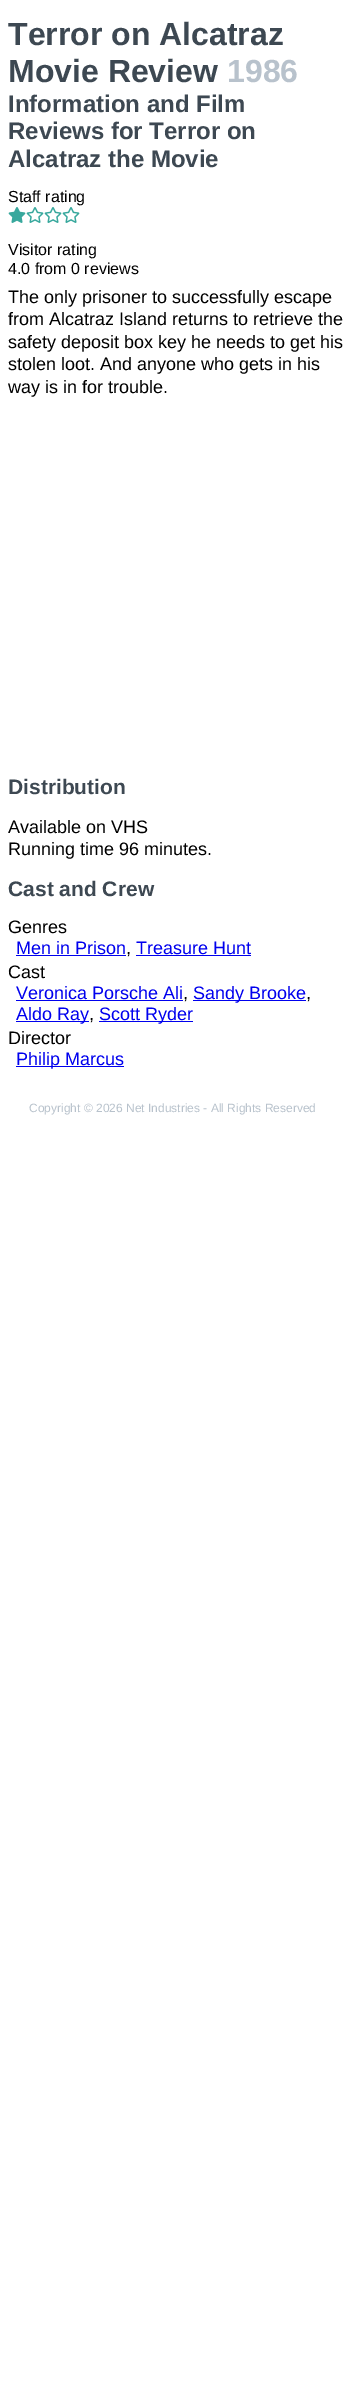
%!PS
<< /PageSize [345 2397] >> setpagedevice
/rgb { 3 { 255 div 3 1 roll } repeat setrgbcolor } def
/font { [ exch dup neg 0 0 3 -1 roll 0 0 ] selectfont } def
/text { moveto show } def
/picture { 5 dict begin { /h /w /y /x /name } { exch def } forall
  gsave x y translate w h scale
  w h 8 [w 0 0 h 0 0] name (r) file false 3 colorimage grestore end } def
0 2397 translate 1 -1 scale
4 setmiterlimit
255 255 255 rgb
0 0 345 2397 rectfill
(img_01.rgb) 8 207 18 16 picture
(img_02.rgb) 26 207 18 16 picture
(img_02.rgb) 44 207 18 16 picture
(img_02.rgb) 62 207 18 16 picture
0 0 238 rgb
16 955 110 1 rectfill
136 955 115 1 rectfill
16 1000 167 1 rectfill
193 1000 113 1 rectfill
16 1021 73 1 rectfill
99 1021 94 1 rectfill
16 1066 108 1 rectfill
/LiberationSans-Bold 32 font
61 72 82 rgb
(Terror on Alcatraz) 8 45 text
(Movie Review) 8 82 text
184 194 204 rgb
(1986) 227 82 text
/LiberationSans-Bold 24 font
61 72 82 rgb
(Information and Film) 8 112 text
(Reviews for Terror on) 8 139 text
(Alcatraz the Movie) 8 167 text
/LiberationSans-Regular 16 font
0 0 0 rgb
(Staff rating) 8 202 text
(Visitor rating) 8 255 text
(4.0 from 0 reviews) 8 274 text
/LiberationSans-Regular 18 font
(The only prisoner to successfully escape) 8 303 text
(from Alcatraz Island returns to retrieve the) 8 325 text
(safety deposit box key he needs to get his) 8 348 text
(stolen loot. And anyone who gets in his) 8 370 text
(way is in for trouble.) 8 393 text
/LiberationSans-Bold 21 font
61 72 82 rgb
(Distribution) 8 794 text
/LiberationSans-Regular 18 font
0 0 0 rgb
(Available on VHS) 8 833 text
(Running time 96 minutes.) 8 855 text
/LiberationSans-Bold 21 font
61 72 82 rgb
(Cast and Crew) 8 896 text
/LiberationSans-Regular 18 font
0 0 0 rgb
(Genres) 8 933 text
0 0 238 rgb
(Men in Prison) 16 954 text
0 0 0 rgb
(,) 126 954 text
0 0 238 rgb
(Treasure Hunt) 136 954 text
0 0 0 rgb
(Cast) 8 978 text
0 0 238 rgb
(Veronica Porsche Ali) 16 999 text
0 0 0 rgb
(,) 183 999 text
0 0 238 rgb
(Sandy Brooke) 193 999 text
0 0 0 rgb
(,) 306 999 text
0 0 238 rgb
(Aldo Ray) 16 1020 text
0 0 0 rgb
(,) 89 1020 text
0 0 238 rgb
(Scott Ryder) 99 1020 text
0 0 0 rgb
(Director) 8 1044 text
0 0 238 rgb
(Philip Marcus) 16 1065 text
/LiberationSans-Regular 12 font
184 194 204 rgb
(Copyright © 2026 Net Industries - All Rights Reserved) 29 1112 text
showpage
